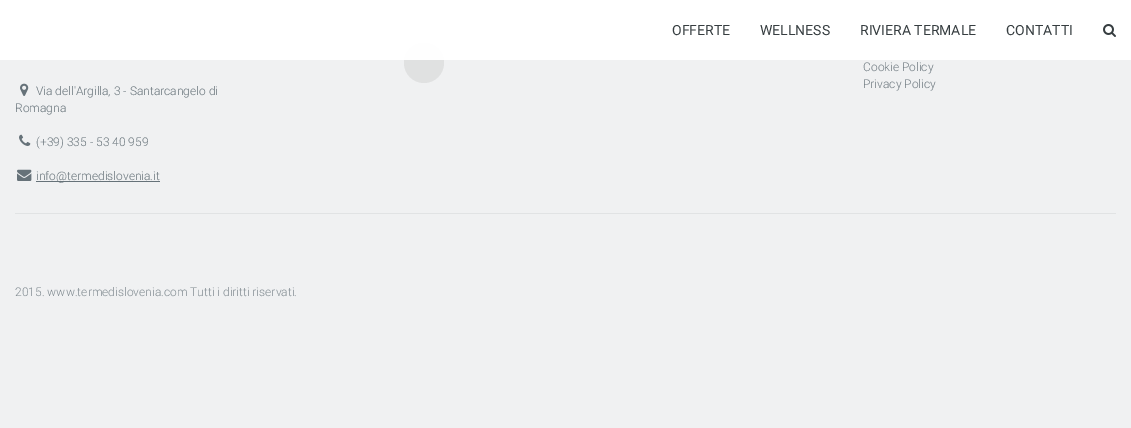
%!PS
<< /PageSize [1131 428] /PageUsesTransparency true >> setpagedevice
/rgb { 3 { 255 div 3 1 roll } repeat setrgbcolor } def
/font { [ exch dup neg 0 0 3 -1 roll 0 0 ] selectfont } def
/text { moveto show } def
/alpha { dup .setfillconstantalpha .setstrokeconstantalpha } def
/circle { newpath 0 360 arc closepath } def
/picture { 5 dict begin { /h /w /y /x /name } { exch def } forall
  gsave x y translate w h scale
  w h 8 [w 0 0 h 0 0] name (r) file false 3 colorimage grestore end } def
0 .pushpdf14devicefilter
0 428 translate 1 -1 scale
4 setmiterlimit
240 241 242 rgb
0 0 1131 428 rectfill
224 225 225 rgb
424 63 20 circle fill
0.97 alpha
255 255 255 rgb
0 0 1131 60 rectfill
1 alpha
(img_01.rgb) 1103 24 13 13 picture
(img_02.rgb) 20 83 9 13 picture
(img_03.rgb) 19 134 12 12 picture
(img_04.rgb) 17 169 15 12 picture
102 114 121 rgb
36 181 124 1 rectfill
225 227 228 rgb
15 213 1101 1 rectfill
/Roboto-Regular 14 font
54 61 64 rgb
(OFFERTE) 672 35 text
(WELLNESS) 760 35 text
(RIVIERA TERMALE) 860 35 text
(CONTATTI) 1006 35 text
/Roboto-Light 12 font
110 121 128 rgb
(Cookie Policy) 863 71 text
(Privacy Policy) 863 88 text
102 114 121 rgb
(Via dell'Argilla, 3 - Santarcangelo di) 36 95 text
(Romagna) 15 112 text
(\(+39\) 335 - 53 40 959) 36 146 text
(info@termedislovenia.it) 36 180 text
129 139 145 rgb
(2015. www.termedislovenia.com Tutti i diritti riservati.) 15 296 text
.poppdf14devicefilter showpage
